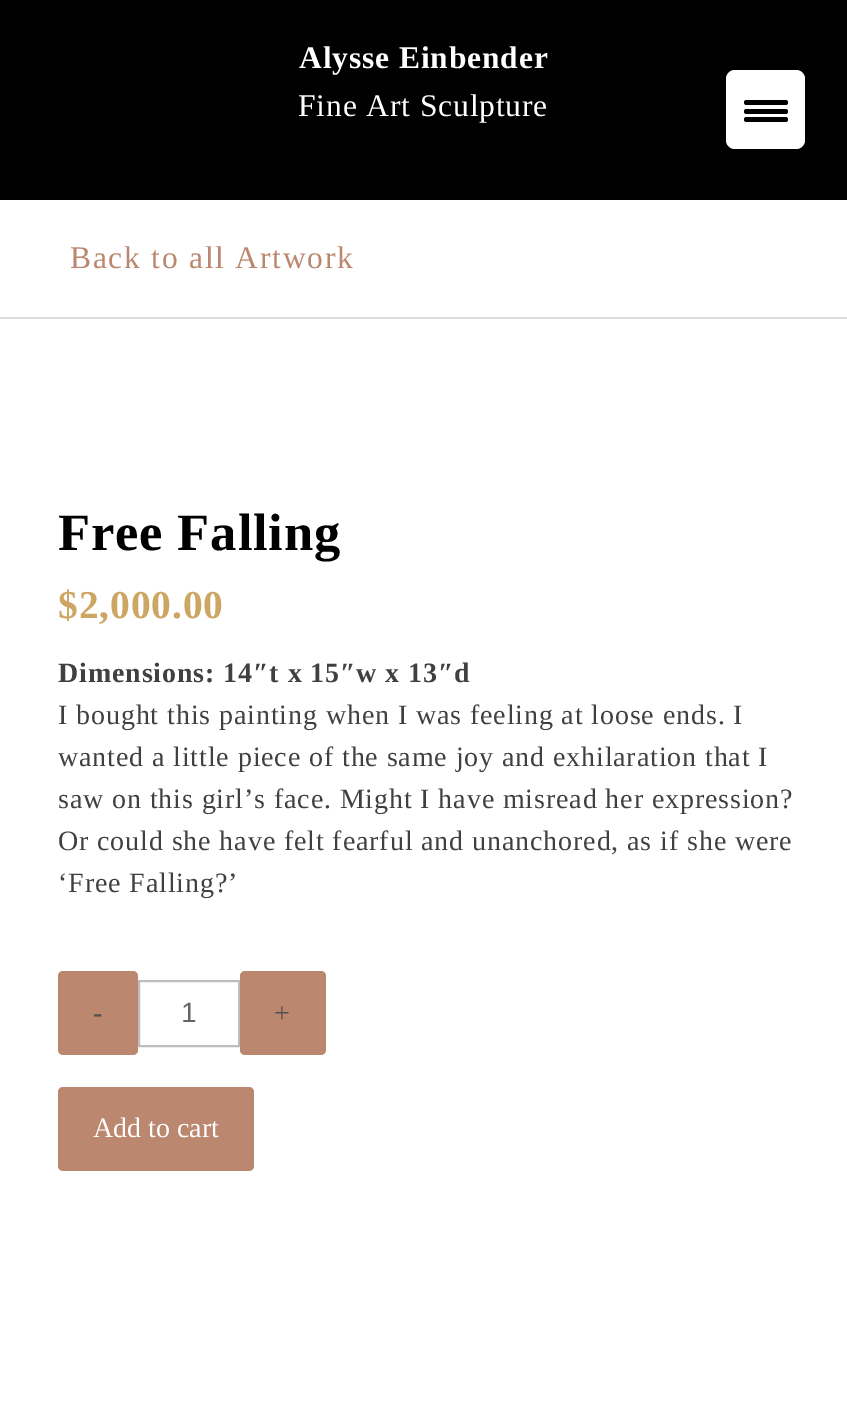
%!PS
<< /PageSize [847 1407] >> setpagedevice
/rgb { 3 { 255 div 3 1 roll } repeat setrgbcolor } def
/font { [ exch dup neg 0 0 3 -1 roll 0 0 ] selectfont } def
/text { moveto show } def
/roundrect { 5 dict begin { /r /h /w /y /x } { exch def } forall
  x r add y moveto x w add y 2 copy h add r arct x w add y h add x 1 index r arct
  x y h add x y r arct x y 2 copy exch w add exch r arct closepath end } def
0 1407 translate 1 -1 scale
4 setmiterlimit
255 255 255 rgb
0 0 847 1407 rectfill
0 0 0 rgb
0 0 847 200 rectfill
219 219 219 rgb
0 317 847 2 rectfill
187 135 111 rgb
58 971 80 84 5 roundrect fill
189 189 189 rgb
2 setlinewidth
139 981 100 65 rectstroke
187 135 111 rgb
240 971 86 84 5 roundrect fill
58 1087 196 84 5 roundrect fill
255 255 255 rgb
726 70 79 79 9 roundrect fill
0 0 0 rgb
744 109 44 5 2.5 roundrect fill
744 100 44 5 2.5 roundrect fill
744 117 44 5 2.5 roundrect fill
/LiberationSerif-Bold 31.5 font
255 255 255 rgb
299 68 moveto 0.88 0 (Alysse Einbender) ashow
/LiberationSerif-Regular 31.5 font
298 116 moveto 0.88 0 (Fine Art Sculpture) ashow
187 135 111 rgb
70 268 moveto 1.75 0 (Back to all Artwork) ashow
/LiberationSerif-Bold 52.5 font
0 0 0 rgb
58 550 moveto 0.88 0 (Free Falling) ashow
/LiberationSerif-Bold 39.5 font
206 166 100 rgb
58 618 moveto 0.88 0 ($2,000.00) ashow
/LiberationSerif-Bold 28 font
64 64 64 rgb
58 682 moveto 0.88 0 (Dimensions: 14″t x 15″w x 13″d) ashow
/LiberationSerif-Regular 28 font
58 724 moveto 0.88 0 (I bought this painting when I was feeling at loose ends. I) ashow
58 766 moveto 0.88 0 (wanted a little piece of the same joy and exhilaration that I) ashow
58 808 moveto 0.88 0 (saw on this girl’s face. Might I have misread her expression?) ashow
58 850 moveto 0.88 0 (Or could she have felt fearful and unanchored, as if she were) ashow
58 892 moveto 0.88 0 (‘Free Falling?’) ashow
81 81 81 rgb
(-) 93 1022 text
/LiberationSans-Regular 28 font
102 102 102 rgb
(1) 181 1022 text
/LiberationSerif-Regular 28 font
81 81 81 rgb
(+) 274 1022 text
255 255 255 rgb
(Add to cart) 93 1137 text
showpage
